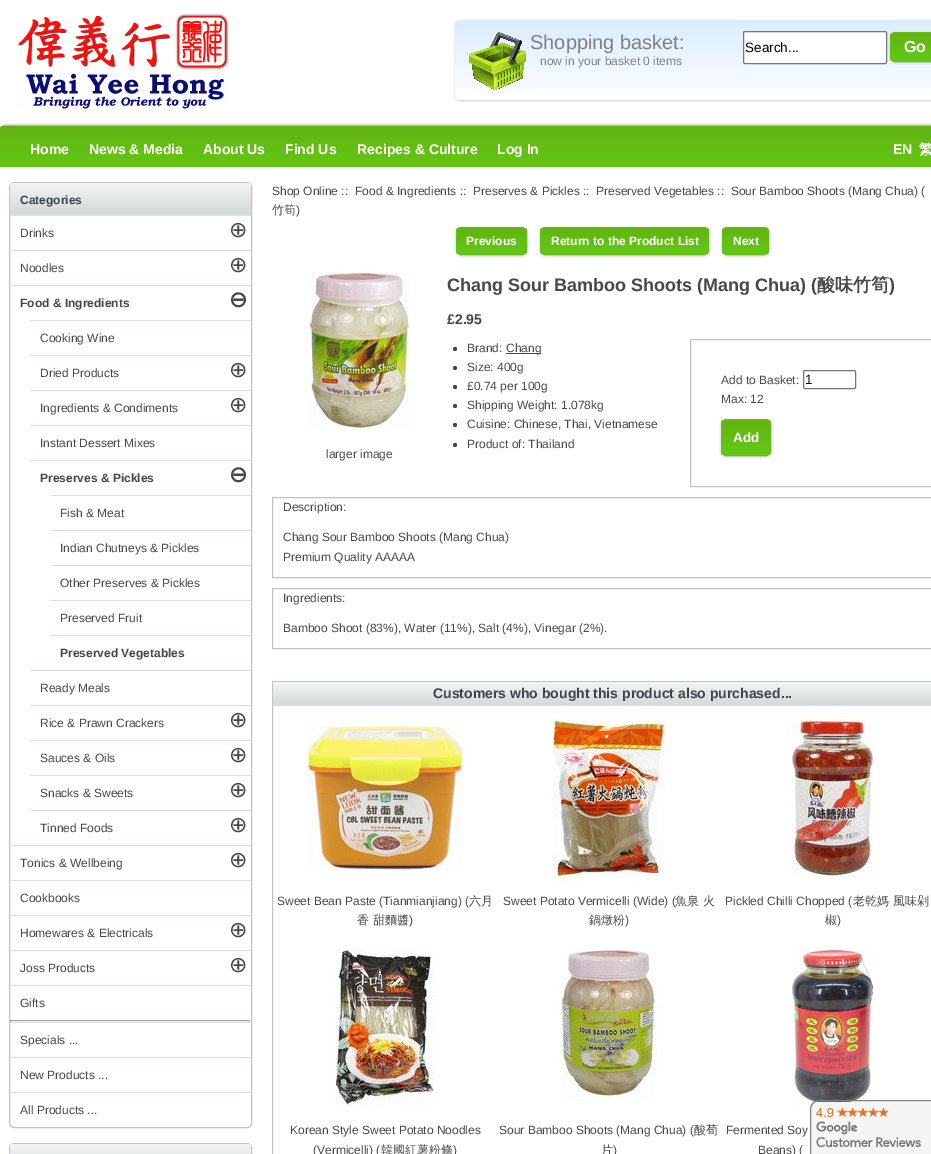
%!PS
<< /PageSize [931 1154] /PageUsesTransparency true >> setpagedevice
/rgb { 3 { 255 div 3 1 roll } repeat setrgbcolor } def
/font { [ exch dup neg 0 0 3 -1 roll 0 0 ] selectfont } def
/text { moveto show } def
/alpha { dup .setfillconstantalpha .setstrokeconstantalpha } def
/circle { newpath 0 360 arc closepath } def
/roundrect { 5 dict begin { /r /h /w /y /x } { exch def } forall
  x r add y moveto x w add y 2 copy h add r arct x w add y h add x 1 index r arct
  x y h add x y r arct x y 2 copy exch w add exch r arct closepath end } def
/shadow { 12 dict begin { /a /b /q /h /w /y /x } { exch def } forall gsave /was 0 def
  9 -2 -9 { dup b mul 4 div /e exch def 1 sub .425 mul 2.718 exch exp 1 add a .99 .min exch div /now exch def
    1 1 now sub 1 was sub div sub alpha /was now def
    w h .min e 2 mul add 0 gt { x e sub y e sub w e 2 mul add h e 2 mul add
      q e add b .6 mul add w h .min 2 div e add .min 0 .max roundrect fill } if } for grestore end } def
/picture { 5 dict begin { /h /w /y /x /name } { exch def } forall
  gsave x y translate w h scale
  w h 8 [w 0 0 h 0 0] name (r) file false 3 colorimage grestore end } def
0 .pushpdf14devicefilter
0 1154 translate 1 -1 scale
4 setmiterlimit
255 255 255 rgb
0 0 931 1154 rectfill
(img_01.rgb) 18 13 211 96 picture
204 204 204 rgb
455 21 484 80 5 1 1 shadow
gsave 455 20 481 80 5 roundrect clip newpath
<< /ShadingType 2 /ColorSpace /DeviceRGB /Coords [708 20 708 100] /Extend [true true] /Function << /FunctionType 2 /Domain [0 1] /C0 [0.851 0.925 1] /C1 [1 1 1] /N 1 >> >> shfill grestore
(img_02.rgb) 469 32 57 58 picture
255 255 255 rgb
743.5 31.5 143 32 1.5 roundrect gsave fill grestore
118 118 118 rgb
stroke
204 204 204 rgb
890 33 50 30 5 1.5 1 shadow
gsave
890 32 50 30 5 roundrect clip newpath
gsave 890 33 moveto 41 0 rlineto 0 28 rlineto -41 0 rlineto closepath clip newpath
<< /ShadingType 2 /ColorSpace /DeviceRGB /Coords [915 33 915 61] /Extend [true true] /Function << /FunctionType 2 /Domain [0 1] /C0 [0.384 0.702 0.071] /C1 [0.384 0.788 0.078] /N 1 >> >> shfill grestore
grestore
100 190 19 rgb
890.5 32.5 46 29 4.5 roundrect stroke
74 74 74 rgb
0 126 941 44 5 1.5 1 shadow
gsave 5 126 moveto 926 0 rlineto 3 0 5 2 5 5 rcurveto 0 39 rlineto -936 0 rlineto 0 -39 rlineto 0 -3 2 -5 5 -5 rcurveto closepath clip newpath
<< /ShadingType 2 /ColorSpace /DeviceRGB /Coords [485 126 485 170] /Extend [true true] /Function << /FunctionType 2 /Domain [0 1] /C0 [0.384 0.702 0.071] /C1 [0.384 0.788 0.078] /N 1 >> >> shfill grestore
255 255 255 rgb
0 167 931 6 rectfill
194 194 194 rgb
9.5 182.5 242 945 4.5 roundrect stroke
gsave 15 183 moveto 231 0 rlineto 3 0 5 2 5 5 rcurveto 0 26 rlineto -241 0 rlineto 0 -26 rlineto 0 -3 2 -5 5 -5 rcurveto closepath clip newpath
<< /ShadingType 2 /ColorSpace /DeviceRGB /Coords [131 183 131 214] /Extend [true true] /Function << /FunctionType 2 /Domain [0 1] /C0 [0.949 0.961 0.965] /C1 [0.835 0.851 0.843] /N 1 >> >> shfill grestore
207 229 233 rgb
10 214 241 2 rectfill
10 250 241 1 rectfill
10 285 241 1 rectfill
30 320 221 1 rectfill
30 355 221 1 rectfill
30 390 221 1 rectfill
30 425 221 1 rectfill
30 460 221 1 rectfill
50 495 201 1 rectfill
50 530 201 1 rectfill
50 565 201 1 rectfill
50 600 201 1 rectfill
50 635 201 1 rectfill
30 670 221 1 rectfill
30 705 221 1 rectfill
30 740 221 1 rectfill
30 775 221 1 rectfill
30 810 221 1 rectfill
10 845 241 1 rectfill
10 880 241 1 rectfill
10 915 241 1 rectfill
10 950 241 1 rectfill
10 985 241 1 rectfill
159 159 159 rgb
10 1020 241 1 rectfill
238 238 238 rgb
250 1020 1 2 rectfill
10 1021 241 1 rectfill
159 159 159 rgb
10 1020 1 2 rectfill
207 229 233 rgb
10 1022 241 1 rectfill
10 1057 241 1 rectfill
10 1092 241 1 rectfill
194 194 194 rgb
9.5 1143.5 242 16 4.5 roundrect stroke
gsave 15 1144 moveto 231 0 rlineto 3 0 5 2 5 5 rcurveto 0 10 rlineto -241 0 rlineto 0 -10 rlineto 0 -3 2 -5 5 -5 rcurveto closepath clip newpath
<< /ShadingType 2 /ColorSpace /DeviceRGB /Coords [131 1144 131 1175] /Extend [true true] /Function << /FunctionType 2 /Domain [0 1] /C0 [0.949 0.961 0.965] /C1 [0.835 0.851 0.843] /N 1 >> >> shfill grestore
204 204 204 rgb
456 228 71 28 5 1.5 1 shadow
gsave
456 227 71 28 5 roundrect clip newpath
gsave 456 228 moveto 71 0 rlineto 0 26 rlineto -71 0 rlineto closepath clip newpath
<< /ShadingType 2 /ColorSpace /DeviceRGB /Coords [492 228 492 254] /Extend [true true] /Function << /FunctionType 2 /Domain [0 1] /C0 [0.384 0.702 0.071] /C1 [0.384 0.788 0.078] /N 1 >> >> shfill grestore
grestore
100 190 19 rgb
456.5 227.5 70 27 4.5 roundrect stroke
204 204 204 rgb
540 228 169 28 5 1.5 1 shadow
gsave
540 227 169 28 5 roundrect clip newpath
gsave 540 228 moveto 169 0 rlineto 0 26 rlineto -169 0 rlineto closepath clip newpath
<< /ShadingType 2 /ColorSpace /DeviceRGB /Coords [625 228 625 254] /Extend [true true] /Function << /FunctionType 2 /Domain [0 1] /C0 [0.384 0.702 0.071] /C1 [0.384 0.788 0.078] /N 1 >> >> shfill grestore
grestore
100 190 19 rgb
540.5 227.5 168 27 4.5 roundrect stroke
204 204 204 rgb
722 228 47 28 5 1.5 1 shadow
gsave
722 227 47 28 5 roundrect clip newpath
gsave 722 228 moveto 47 0 rlineto 0 26 rlineto -47 0 rlineto closepath clip newpath
<< /ShadingType 2 /ColorSpace /DeviceRGB /Coords [746 228 746 254] /Extend [true true] /Function << /FunctionType 2 /Domain [0 1] /C0 [0.384 0.702 0.071] /C1 [0.384 0.788 0.078] /N 1 >> >> shfill grestore
grestore
100 190 19 rgb
722.5 227.5 46 27 4.5 roundrect stroke
71 71 71 rgb
455 349 2 circle fill
506 353 35 1 rectfill
455 368 2 circle fill
455 387 2 circle fill
455 406 2 circle fill
455 425 2 circle fill
455 445 2 circle fill
194 194 194 rgb
690.5 339.5 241 147 rectstroke
118 118 118 rgb
803.5 370.5 52 18 1.5 roundrect stroke
204 204 204 rgb
721 420 50 37 5 1.5 1 shadow
gsave
721 419 50 37 5 roundrect clip newpath
gsave 721 420 moveto 50 0 rlineto 0 35 rlineto -50 0 rlineto closepath clip newpath
<< /ShadingType 2 /ColorSpace /DeviceRGB /Coords [746 420 746 455] /Extend [true true] /Function << /FunctionType 2 /Domain [0 1] /C0 [0.384 0.702 0.071] /C1 [0.384 0.788 0.078] /N 1 >> >> shfill grestore
grestore
100 190 19 rgb
721.5 419.5 49 36 4.5 roundrect stroke
(img_03.rgb) 304 271 112 160 picture
194 194 194 rgb
272.5 497.5 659 80 rectstroke
272.5 588.5 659 60 rectstroke
272.5 681.5 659 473 rectstroke
gsave 273 682 moveto 658 0 rlineto 0 23 rlineto -658 0 rlineto closepath clip newpath
<< /ShadingType 2 /ColorSpace /DeviceRGB /Coords [612 682 612 705] /Extend [true true] /Function << /FunctionType 2 /Domain [0 1] /C0 [0.949 0.961 0.965] /C1 [0.835 0.851 0.843] /N 1 >> >> shfill grestore
207 229 233 rgb
273 705 658 1 rectfill
(img_04.rgb) 306 719 160 152 picture
(img_05.rgb) 552 711 114 173 picture
(img_06.rgb) 786 711 88 172 picture
(img_07.rgb) 330 948 104 160 picture
(img_08.rgb) 553 948 112 153 picture
(img_09.rgb) 790 948 83 160 picture
(img_10.rgb) 810 1102 121 52 picture
128 128 128 rgb
819 1100.5 moveto 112.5 0 rlineto 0 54 rlineto -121 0 rlineto 0 -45.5 rlineto 0 -4.5 4 -8.5 8.5 -8.5 rcurveto closepath stroke
/LiberationSans-Regular 20 font
(Shopping basket:) 530 49 text
/LiberationSans-Regular 12 font
(now in your basket 0 items) 540 65 text
/LiberationSans-Regular 13.5 font
0 0 0 rgb
(Search...) 745 52 text
/LiberationSans-Bold 16 font
255 255 255 rgb
(Go) 904 52 text
/LiberationSans-Bold 14 font
(Home) 30 154 text
(News & Media) 89 154 text
(About Us) 203 154 text
(Find Us) 285 154 text
(Recipes & Culture) 357 154 text
(Log In) 497 154 text
(EN) 893 154 text
/WenQuanYiZenHei-Bold 14 font
(繁) 919 154 text
/LiberationSans-Bold 12 font
58 67 79 rgb
(Categories) 20 204 text
/LiberationSans-Regular 12 font
71 71 71 rgb
(Drinks) 20 237 text
/DejaVuSans-Regular 22 font
(⊕) 229 237 text
/LiberationSans-Regular 12 font
(Noodles) 20 272 text
/DejaVuSans-Regular 22 font
(⊕) 229 272 text
/LiberationSans-Bold 12 font
(Food & Ingredients) 20 307 text
/DejaVuSans-Bold 22 font
(⊖) 229 307 text
/LiberationSans-Regular 12 font
(Cooking Wine) 40 342 text
(Dried Products) 40 377 text
/DejaVuSans-Regular 22 font
(⊕) 229 377 text
/LiberationSans-Regular 12 font
(Ingredients & Condiments) 40 412 text
/DejaVuSans-Regular 22 font
(⊕) 229 412 text
/LiberationSans-Regular 12 font
(Instant Dessert Mixes) 40 447 text
/LiberationSans-Bold 12 font
(Preserves & Pickles) 40 482 text
/DejaVuSans-Bold 22 font
(⊖) 229 482 text
/LiberationSans-Regular 12 font
(Fish & Meat) 60 517 text
(Indian Chutneys & Pickles) 60 552 text
(Other Preserves & Pickles) 60 587 text
(Preserved Fruit) 60 622 text
/LiberationSans-Bold 12 font
(Preserved Vegetables) 60 657 text
/LiberationSans-Regular 12 font
(Ready Meals) 40 692 text
(Rice & Prawn Crackers) 40 727 text
/DejaVuSans-Regular 22 font
(⊕) 229 727 text
/LiberationSans-Regular 12 font
(Sauces & Oils) 40 762 text
/DejaVuSans-Regular 22 font
(⊕) 229 762 text
/LiberationSans-Regular 12 font
(Snacks & Sweets) 40 797 text
/DejaVuSans-Regular 22 font
(⊕) 229 797 text
/LiberationSans-Regular 12 font
(Tinned Foods) 40 832 text
/DejaVuSans-Regular 22 font
(⊕) 229 832 text
/LiberationSans-Regular 12 font
(Tonics & Wellbeing) 20 867 text
/DejaVuSans-Regular 22 font
(⊕) 229 867 text
/LiberationSans-Regular 12 font
(Cookbooks) 20 902 text
(Homewares & Electricals) 20 937 text
/DejaVuSans-Regular 22 font
(⊕) 229 937 text
/LiberationSans-Regular 12 font
(Joss Products) 20 972 text
/DejaVuSans-Regular 22 font
(⊕) 229 972 text
/LiberationSans-Regular 12 font
(Gifts) 20 1007 text
(Specials ...) 20 1044 text
(New Products ...) 20 1079 text
(All Products ...) 20 1114 text
(Shop Online ::) 272 195 text
(Food & Ingredients ::) 355 195 text
(Preserves & Pickles ::) 473 195 text
(Preserved Vegetables ::  Sour Bamboo Shoots \(Mang Chua\) \() 596 195 text
/WenQuanYiZenHei-Medium 12 font
(竹筍) 272 214 text
/LiberationSans-Regular 12 font
(\)) 296 214 text
/LiberationSans-Bold 12 font
255 255 255 rgb
(Previous) 466 245 text
(Return to the Product List) 551 245 text
(Next) 733 245 text
/LiberationSans-Bold 18 font
71 71 71 rgb
(Chang Sour Bamboo Shoots \(Mang Chua\) \() 447 291 text
/WenQuanYiZenHei-Bold 18 font
(酸味竹筍) 817 291 text
/LiberationSans-Bold 18 font
(\)) 889 291 text
/LiberationSans-Bold 14 font
(£2.95) 447 324 text
/LiberationSans-Regular 12 font
(Brand:) 467 352 text
(Chang) 506 352 text
(Size: 400g) 467 371 text
(£0.74 per 100g) 467 390 text
(Shipping Weight: 1.078kg) 467 409 text
(Cuisine: Chinese, Thai, Vietnamese) 467 428 text
(Product of: Thailand) 467 448 text
(Add to Basket:) 721 384 text
/LiberationSans-Regular 13.5 font
0 0 0 rgb
(1) 805 384 text
/LiberationSans-Regular 12 font
71 71 71 rgb
(Max: 12) 721 403 text
/LiberationSans-Bold 13.5 font
255 255 255 rgb
(Add) 733 442 text
/LiberationSans-Regular 12 font
71 71 71 rgb
(larger image) 326 458 text
(Description:) 283 511 text
(Chang Sour Bamboo Shoots \(Mang Chua\)) 283 541 text
(Premium Quality AAAAA) 283 561 text
(Ingredients:) 283 602 text
(Bamboo Shoot \(83%\), Water \(11%\), Salt \(4%\), Vinegar \(2%\).) 283 632 text
/LiberationSans-Bold 14 font
58 67 79 rgb
(Customers who bought this product also purchased...) 433 698 text
/LiberationSans-Regular 12 font
71 71 71 rgb
(Sweet Bean Paste \(Tianmianjiang\) \() 277 905 text
/WenQuanYiZenHei-Medium 12 font
(六月) 469 905 text
(香 甜麵醬) 357 924 text
/LiberationSans-Regular 12 font
(\)) 409 924 text
(Sweet Potato Vermicelli \(Wide\) \() 503 905 text
/WenQuanYiZenHei-Medium 12 font
(魚泉 火) 675 905 text
(鍋燉粉) 589 924 text
/LiberationSans-Regular 12 font
(\)) 625 924 text
(Pickled Chilli Chopped \() 725 905 text
/WenQuanYiZenHei-Medium 12 font
(老乾媽 風味剁) 853 905 text
(椒) 825 924 text
/LiberationSans-Regular 12 font
(\)) 837 924 text
(Korean Style Sweet Potato Noodles) 290 1134 text
(\(Vermicelli\) \() 313 1154 text
/WenQuanYiZenHei-Medium 12 font
(韓國紅薯粉條) 381 1154 text
/LiberationSans-Regular 12 font
(\)) 453 1154 text
(Sour Bamboo Shoots \(Mang Chua\) \() 499 1134 text
/WenQuanYiZenHei-Medium 12 font
(酸荀) 694 1134 text
(片) 601 1154 text
/LiberationSans-Regular 12 font
(\)) 613 1154 text
(Fermented Soy) 726 1134 text
(Beans\) \() 758 1154 text
.poppdf14devicefilter showpage
